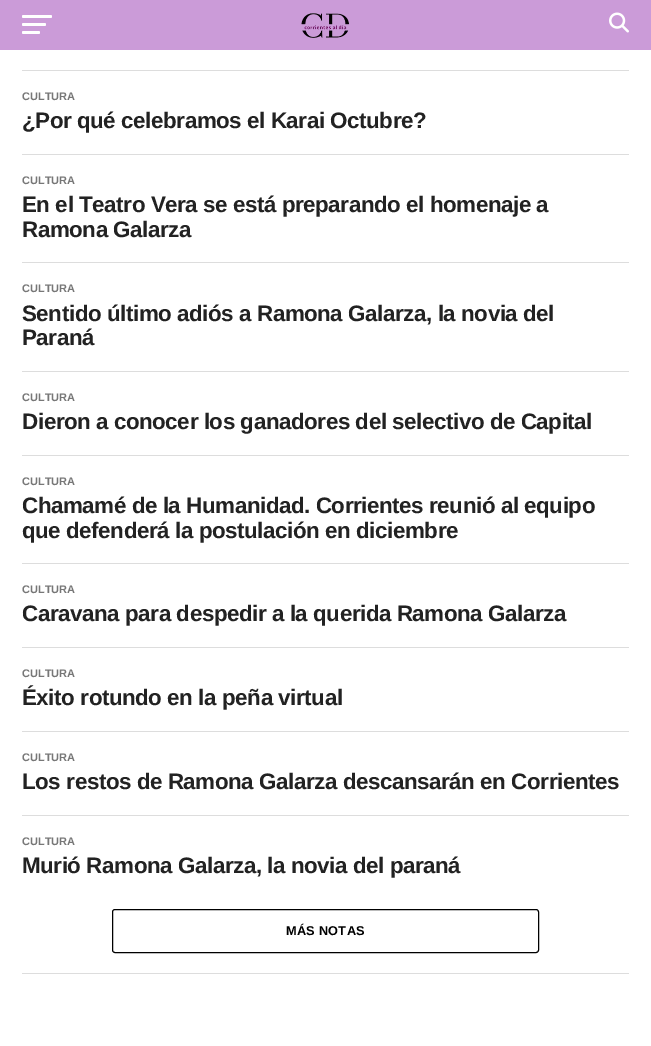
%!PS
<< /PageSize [651 1046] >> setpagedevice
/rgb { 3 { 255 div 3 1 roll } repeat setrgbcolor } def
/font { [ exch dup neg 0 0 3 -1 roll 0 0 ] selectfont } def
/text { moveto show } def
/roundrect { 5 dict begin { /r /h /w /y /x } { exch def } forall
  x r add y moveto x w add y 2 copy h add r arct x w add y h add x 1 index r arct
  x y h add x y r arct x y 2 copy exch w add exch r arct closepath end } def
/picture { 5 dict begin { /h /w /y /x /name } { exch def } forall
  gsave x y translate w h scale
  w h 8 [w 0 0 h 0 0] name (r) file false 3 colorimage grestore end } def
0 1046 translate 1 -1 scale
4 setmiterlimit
255 255 255 rgb
0 0 651 1046 rectfill
203 155 216 rgb
0 0 651 50 rectfill
255 255 255 rgb
22 15 30 3 1.5 roundrect fill
22 23 24 3 1.5 roundrect fill
22 31 18 3 1.5 roundrect fill
(img_01.rgb) 301 13 49 25 picture
(img_02.rgb) 609 12 20 21 picture
221 221 221 rgb
22 70 607 1 rectfill
22 154 607 1 rectfill
22 262 607 1 rectfill
22 371 607 1 rectfill
22 455 607 1 rectfill
22 563 607 1 rectfill
22 647 607 1 rectfill
22 731 607 1 rectfill
22 815 607 1 rectfill
0 0 0 rgb
112.5 909.5 426 43 2.5 roundrect stroke
221 221 221 rgb
22 973 607 1 rectfill
/LiberationSans-Bold 11 font
119 119 119 rgb
(CULTURA) 22 100 text
/LiberationSans-Bold 22.4 font
34 34 34 rgb
22 128 moveto -0.45 0 (¿Por qué celebramos el Karai Octubre?) ashow
/LiberationSans-Bold 11 font
119 119 119 rgb
(CULTURA) 22 184 text
/LiberationSans-Bold 22.4 font
34 34 34 rgb
22 212 moveto -0.45 0 (En el Teatro Vera se está preparando el homenaje a) ashow
22 237 moveto -0.45 0 (Ramona Galarza) ashow
/LiberationSans-Bold 11 font
119 119 119 rgb
(CULTURA) 22 292 text
/LiberationSans-Bold 22.4 font
34 34 34 rgb
22 321 moveto -0.45 0 (Sentido último adiós a Ramona Galarza, la novia del) ashow
22 345 moveto -0.45 0 (Paraná) ashow
/LiberationSans-Bold 11 font
119 119 119 rgb
(CULTURA) 22 401 text
/LiberationSans-Bold 22.4 font
34 34 34 rgb
22 429 moveto -0.45 0 (Dieron a conocer los ganadores del selectivo de Capital) ashow
/LiberationSans-Bold 11 font
119 119 119 rgb
(CULTURA) 22 485 text
/LiberationSans-Bold 22.4 font
34 34 34 rgb
22 513 moveto -0.45 0 (Chamamé de la Humanidad. Corrientes reunió al equipo) ashow
22 538 moveto -0.45 0 (que defenderá la postulación en diciembre) ashow
/LiberationSans-Bold 11 font
119 119 119 rgb
(CULTURA) 22 593 text
/LiberationSans-Bold 22.4 font
34 34 34 rgb
22 621 moveto -0.45 0 (Caravana para despedir a la querida Ramona Galarza) ashow
/LiberationSans-Bold 11 font
119 119 119 rgb
(CULTURA) 22 677 text
/LiberationSans-Bold 22.4 font
34 34 34 rgb
22 705 moveto -0.45 0 (Éxito rotundo en la peña virtual) ashow
/LiberationSans-Bold 11 font
119 119 119 rgb
(CULTURA) 22 761 text
/LiberationSans-Bold 22.4 font
34 34 34 rgb
22 789 moveto -0.45 0 (Los restos de Ramona Galarza descansarán en Corrientes) ashow
/LiberationSans-Bold 11 font
119 119 119 rgb
(CULTURA) 22 845 text
/LiberationSans-Bold 22.4 font
34 34 34 rgb
22 873 moveto -0.45 0 (Murió Ramona Galarza, la novia del paraná) ashow
/LiberationSans-Bold 12.75 font
0 0 0 rgb
286 935 moveto 0.25 0 (MÁS NOTAS) ashow
showpage
